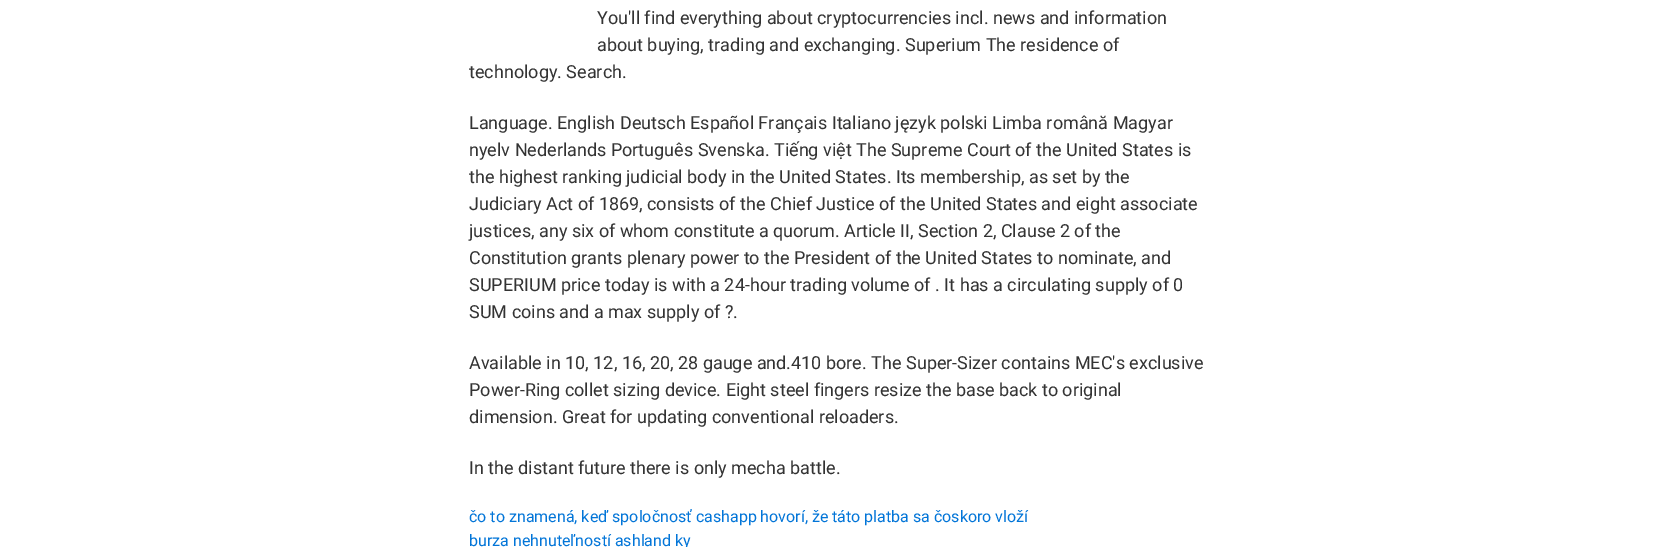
%!PS
<< /PageSize [1674 547] >> setpagedevice
/rgb { 3 { 255 div 3 1 roll } repeat setrgbcolor } def
/font { [ exch dup neg 0 0 3 -1 roll 0 0 ] selectfont } def
/text { moveto show } def
0 547 translate 1 -1 scale
4 setmiterlimit
255 255 255 rgb
0 0 1674 547 rectfill
/Roboto-Regular 18 font
51 51 51 rgb
(You'll find everything about cryptocurrencies incl. news and information) 597 24 text
(about buying, trading and exchanging. Superium The residence of) 597 51 text
(technology. Search.) 469 78 text
(Language. English Deutsch Español Français Italiano język polski Limba română Magyar) 469 129 text
(nyelv Nederlands Português Svenska. Tiếng việt The Supreme Court of the United States is) 469 156 text
(the highest ranking judicial body in the United States. Its membership, as set by the) 469 183 text
(Judiciary Act of 1869, consists of the Chief Justice of the United States and eight associate) 469 210 text
(justices, any six of whom constitute a quorum. Article II, Section 2, Clause 2 of the) 469 237 text
(Constitution grants plenary power to the President of the United States to nominate, and) 469 264 text
(SUPERIUM price today is with a 24-hour trading volume of . It has a circulating supply of 0) 469 291 text
(SUM coins and a max supply of ?.) 469 318 text
(Available in 10, 12, 16, 20, 28 gauge and.410 bore. The Super-Sizer contains MEC's exclusive) 469 369 text
(Power-Ring collet sizing device. Eight steel fingers resize the base back to original) 469 396 text
(dimension. Great for updating conventional reloaders.) 469 423 text
(In the distant future there is only mecha battle.) 469 474 text
/Roboto-Regular 16 font
2 117 216 rgb
(čo to znamená, keď spoločnosť cashapp hovorí, že táto platba sa čoskoro vloží) 469 522 text
(burza nehnuteľností ashland ky) 469 546 text
showpage
